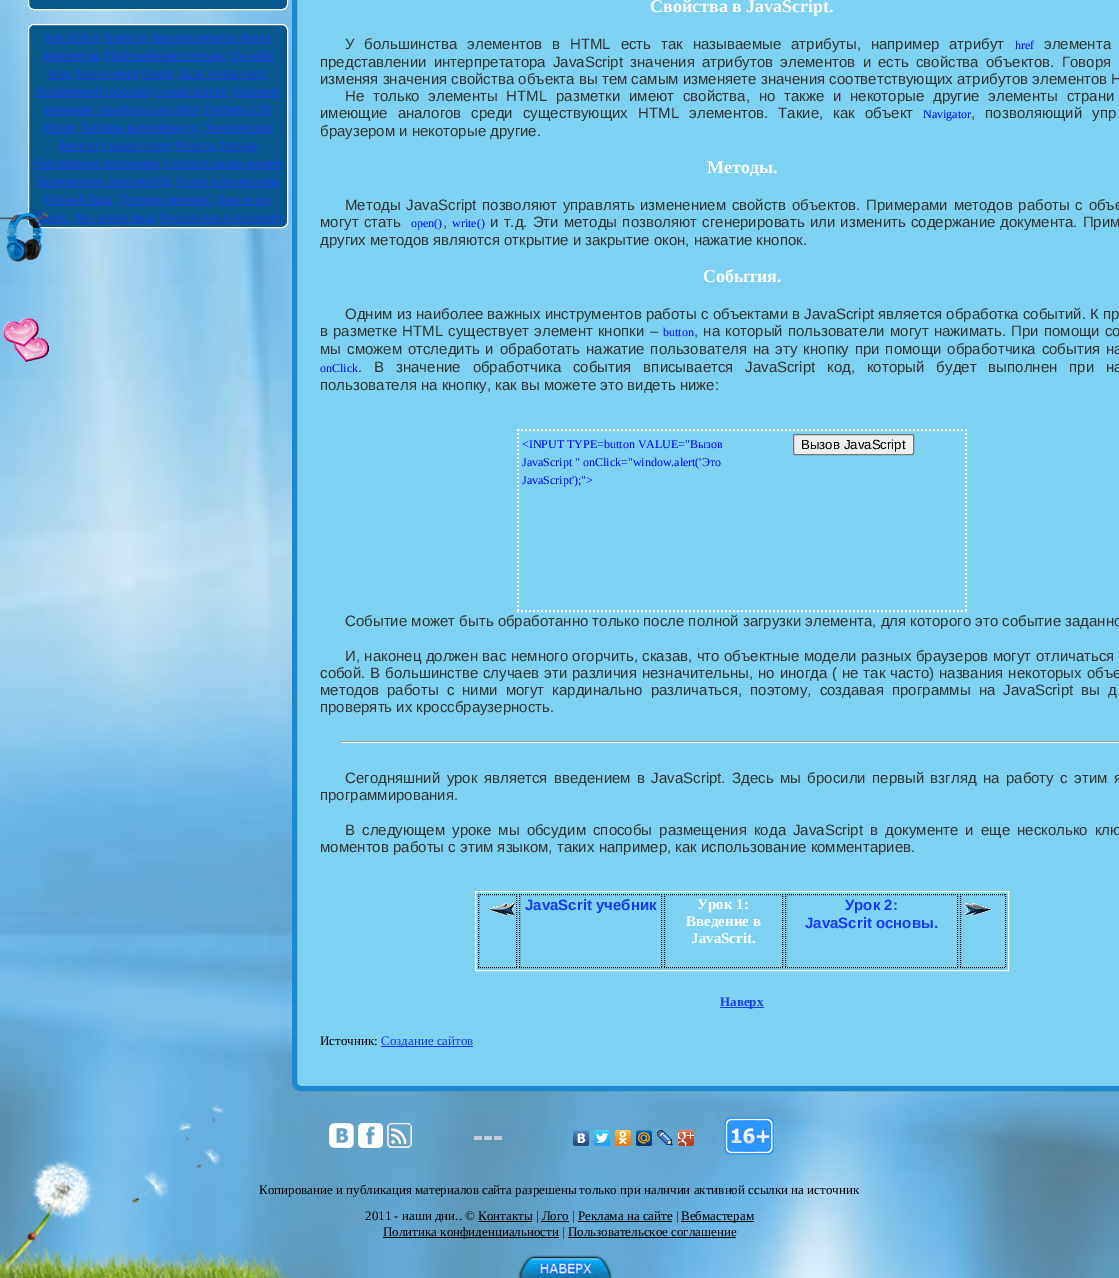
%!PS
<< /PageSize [1119 1278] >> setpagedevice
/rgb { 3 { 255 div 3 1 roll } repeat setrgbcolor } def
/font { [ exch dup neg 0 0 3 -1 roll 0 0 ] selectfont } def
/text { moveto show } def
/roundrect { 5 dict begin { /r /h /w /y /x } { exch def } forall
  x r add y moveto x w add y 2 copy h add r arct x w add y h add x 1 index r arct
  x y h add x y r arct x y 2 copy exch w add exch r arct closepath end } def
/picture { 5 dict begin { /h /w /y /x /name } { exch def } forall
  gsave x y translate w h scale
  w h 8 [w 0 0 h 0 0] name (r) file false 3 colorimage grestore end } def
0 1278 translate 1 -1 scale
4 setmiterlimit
255 255 255 rgb
0 0 1119 1278 rectfill
(img_01.rgb) 0 0 1119 1278 picture
7 88 141 rgb
28.5 -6.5 259 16 5.5 roundrect gsave fill grestore
255 255 255 rgb
stroke
7 88 141 rgb
28.5 24.5 259 203 5.5 roundrect gsave fill grestore
255 255 255 rgb
stroke
23 57 240 rgb
45 42 55 1 rectfill
104 42 43 1 rectfill
151 42 120 1 rectfill
42 60 59 1 rectfill
105 60 121 1 rectfill
230 60 44 1 rectfill
48 78 25 1 rectfill
77 78 61 1 rectfill
142 78 32 1 rectfill
178 78 90 1 rectfill
37 96 114 1 rectfill
155 96 73 1 rectfill
232 96 47 1 rectfill
44 114 50 1 rectfill
98 114 101 1 rectfill
203 114 69 1 rectfill
43 132 34 1 rectfill
81 132 118 1 rectfill
203 132 70 1 rectfill
59 150 39 1 rectfill
102 150 69 1 rectfill
175 150 41 1 rectfill
220 150 37 1 rectfill
34 168 127 1 rectfill
165 168 117 1 rectfill
37 186 134 1 rectfill
175 186 104 1 rectfill
44 204 68 1 rectfill
116 204 96 1 rectfill
216 204 56 1 rectfill
33 222 39 1 rectfill
76 222 80 1 rectfill
160 222 123 1 rectfill
125 210 242 rgb
294.5 -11.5 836 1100 6.5 roundrect gsave fill grestore
30 136 204 rgb
5 setlinewidth
stroke
255 255 255 rgb
2 setlinewidth
[2 2] 0 setdash
517 430 moveto 450 0 rlineto stroke
966 429 moveto 0 183 rlineto stroke
517 611 moveto 450 0 rlineto stroke
518 429 moveto 0 183 rlineto stroke
239 239 239 rgb
793.5 434.5 120 20 1.5 roundrect gsave fill grestore
118 118 118 rgb
1 setlinewidth
[] 0 setdash
stroke
159 159 159 rgb
340 741 779 1 rectfill
238 238 238 rgb
340 742 779 1 rectfill
159 159 159 rgb
340 741 1 2 rectfill
255 255 255 rgb
475.5 891.5 533 79 rectstroke
0 0 0 rgb
[1 1] 0 setdash
478 894.5 moveto 39 0 rlineto stroke
516.5 894 moveto 0 74 rlineto stroke
478 967.5 moveto 39 0 rlineto stroke
478.5 894 moveto 0 74 rlineto stroke
(img_03.rgb) 488 903 27 13 picture
519 894.5 moveto 143 0 rlineto stroke
661.5 894 moveto 0 74 rlineto stroke
519 967.5 moveto 143 0 rlineto stroke
519.5 894 moveto 0 74 rlineto stroke
664 894.5 moveto 119 0 rlineto stroke
782.5 894 moveto 0 74 rlineto stroke
664 967.5 moveto 119 0 rlineto stroke
664.5 894 moveto 0 74 rlineto stroke
785 894.5 moveto 173 0 rlineto stroke
957.5 894 moveto 0 74 rlineto stroke
785 967.5 moveto 173 0 rlineto stroke
785.5 894 moveto 0 74 rlineto stroke
960 894.5 moveto 46 0 rlineto stroke
1005.5 894 moveto 0 74 rlineto stroke
960 967.5 moveto 46 0 rlineto stroke
960.5 894 moveto 0 74 rlineto stroke
(img_04.rgb) 965 903 27 13 picture
23 57 240 rgb
720 1007 44 1 rectfill
381 1046 92 1 rectfill
(img_05.rgb) 2 318 47 44 picture
(img_06.rgb) 0 1104 292 174 picture
(img_07.rgb) 518 1255 94 23 picture
(img_08.rgb) 329 1123 25 25 picture
(img_09.rgb) 358 1123 25 25 picture
(img_10.rgb) 387 1123 25 25 picture
(img_11.rgb) 474 1136 28 4 picture
(img_12.rgb) 573 1130 16 16 picture
(img_13.rgb) 594 1130 16 16 picture
(img_14.rgb) 615 1130 16 16 picture
(img_15.rgb) 636 1130 16 16 picture
(img_16.rgb) 657 1130 16 16 picture
(img_17.rgb) 678 1130 16 16 picture
(img_18.rgb) 724 1117 50 38 picture
0 0 0 rgb
681 1221 73 1 rectfill
478 1221 54 1 rectfill
541 1221 28 1 rectfill
578 1221 94 1 rectfill
383 1237 176 1 rectfill
568 1237 168 1 rectfill
/LiberationSerif-Regular 12 font
23 57 240 rgb
(Just click it) 45 41 text
(Новости) 104 41 text
(Загадки планеты Земля) 151 41 text
(Знакомства) 42 59 text
(Flash информер погоды) 105 59 text
(Он-лайн) 230 59 text
(игры) 48 77 text
(Карты мира) 77 77 text
(Поиск) 142 77 text
(Даты конца света) 178 77 text
(Ежедневный гороскоп) 37 95 text
(Google gravity) 155 95 text
(Красивая) 232 95 text
(анимация) 44 113 text
(Заработать на сайте) 98 113 text
(Учебник CSS) 203 113 text
(Промо) 43 131 text
(Таблица калорийности) 81 131 text
(Экзотические) 203 131 text
(фрукты) 59 149 text
(Скачать игры) 102 149 text
(Фрукты) 175 149 text
(Погода) 220 149 text
(Партнёрские программы) 34 167 text
(Слушать радио онлайн) 165 167 text
(Приниматель решений \(8\)) 37 185 text
(Отдых и релаксация) 175 185 text
(Полный бред) 44 203 text
("Путешественник") 116 203 text
(Наш опрос) 216 203 text
(Акция..) 33 221 text
(img_02.rgb) 0 212 49 50 picture
(Все замки мира) 76 221 text
(Интересное в интернете) 160 221 text
/LiberationSerif-Bold 18 font
255 255 255 rgb
(Cвойства в JavaScript.) 650 12 text
/LiberationSans-Regular 15 font
51 51 51 rgb
345 49 moveto 5.75 0 32 (У большинства элементов в HTML есть так называемые атрибуты, например атрибут) widthshow
/LiberationSerif-Regular 12 font
0 0 255 rgb
(href) 1015 49 text
/LiberationSans-Regular 15 font
51 51 51 rgb
(элемента) 1044 49 text
320 67 moveto 3.1 0 32 (представлении интерпретатора JavaScript значения атрибутов элементов и есть свойства объектов. Говоря) widthshow
(изменяя значения свойства объекта вы тем самым изменяете значения соответствующих атрибутов элементов H) 320 84 text
345 101 moveto 4.6 0 32 (Не только элементы HTML разметки имеют свойства, но также и некоторые другие элементы страни) widthshow
320 118 moveto 6 0 32 (имеющие аналогов среди существующих HTML элементов. Такие, как объект) widthshow
/LiberationSerif-Regular 12 font
0 0 255 rgb
(Navigator) 923 118 text
/LiberationSans-Regular 15 font
51 51 51 rgb
971 118 moveto 6 0 32 (, позволяющий упр) widthshow
(браузером и некоторые другие.) 320 136 text
/LiberationSerif-Bold 18 font
255 255 255 rgb
(Методы.) 707 173 text
/LiberationSans-Regular 15 font
51 51 51 rgb
345 210 moveto 1.6 0 32 (Методы JavaScript позволяют управлять изменением свойств объектов. Примерами методов работы с объе) widthshow
320 227 moveto 1 0 32 (могут стать) widthshow
/LiberationSerif-Regular 12 font
0 0 255 rgb
(open\(\)) 411 227 text
/LiberationSans-Regular 15 font
51 51 51 rgb
(,) 443 227 text
/LiberationSerif-Regular 12 font
0 0 255 rgb
(write\(\)) 452 227 text
/LiberationSans-Regular 15 font
51 51 51 rgb
490 227 moveto 1 0 32 (и т.д. Эти методы позволяют сгенерировать или изменить содержание) widthshow
1000 227 moveto 1 0 32 (документа. Прим) widthshow
(других методов являются открытие и закрытие окон, нажатие кнопок.) 320 245 text
/LiberationSerif-Bold 18 font
255 255 255 rgb
(События.) 703 282 text
/LiberationSans-Regular 15 font
51 51 51 rgb
(Одним из наиболее важных инструментов работы с объектами в JavaScript является обработка событий. К пр) 345 319 text
320 336 moveto 1 0 32 (в разметке HTML существует элемент кнопки) widthshow
(–) 650 336 text
/LiberationSerif-Regular 12 font
0 0 255 rgb
(button) 663 336 text
/LiberationSans-Regular 15 font
51 51 51 rgb
694 336 moveto 1 0 32 (, на который пользователи могут нажимать. При помощи со) widthshow
320 354 moveto 1.75 0 32 (мы сможем отследить и обработать нажатие пользователя на эту кнопку при помощи обработчика события на) widthshow
/LiberationSerif-Regular 12 font
0 0 255 rgb
(onClick) 320 372 text
/LiberationSans-Regular 15 font
51 51 51 rgb
358 372 moveto 7.75 0 32 (. В значение обработчика события вписывается JavaScript код, который будет выполнен при на) widthshow
(пользователя на кнопку, как вы можете это видеть ниже:) 320 390 text
/LiberationSerif-Regular 12 font
0 0 255 rgb
(<INPUT TYPE=button VALUE="Вызов) 522 448 text
(JavaScript " onClick="window.alert\('Это) 522 466 text
(JavaScript'\);">) 522 484 text
/LiberationSans-Regular 13.25 font
0 0 0 rgb
(Вызов JavaScript) 801 449 text
/LiberationSans-Regular 15 font
51 51 51 rgb
(Событие может быть обработанно только после полной загрузки элемента, для которого это событие заданно) 345 626 text
345 661 moveto 0.25 0 32 (И, наконец должен вас немного огорчить, сказав, что объектные модели разных браузеров могут отличаться) widthshow
320 678 moveto 0.75 0 32 (собой. В большинстве случаев эти различия незначительны, но иногда \( не так часто\) названия некоторых объе) widthshow
320 695 moveto 4 0 32 (методов работы с ними могут кардинально различаться, поэтому, создавая программы на JavaScript вы д) widthshow
(проверять их кроссбраузерность.) 320 712 text
345 783 moveto 2.25 0 32 (Сегодняшний урок является введением в JavaScript. Здесь мы бросили первый взгляд на работу с этим я) widthshow
(программирования.) 320 800 text
345 835 moveto 2.9 0 32 (В следующем уроке мы обсудим способы размещения кода JavaScript в документе и еще несколько клю) widthshow
(моментов работы с этим языком, таких например, как использование комментариев.) 320 852 text
/LiberationSans-Bold 15 font
23 57 240 rgb
(JavaScrit учебник) 525 910 text
/LiberationSerif-Bold 15 font
255 255 255 rgb
(Урок 1:) 697 909 text
(Введение в) 686 926 text
(JavaScrit.) 691 943 text
/LiberationSans-Bold 15 font
23 57 240 rgb
(Урок 2:) 845 910 text
(JavaScrit основы.) 805 928 text
/LiberationSerif-Bold 13 font
(Наверх) 720 1006 text
/LiberationSerif-Regular 13 font
0 0 0 rgb
(Источник:) 320 1045 text
23 57 240 rgb
(Создание сайтов) 381 1045 text
0 0 0 rgb
(Копирование и публикация материалов сайта разрешены только при наличии активной ссылки на источник) 259 1194 text
(2011 - наши дни.. © Контакты | Лого | Реклама на сайте |) 365 1220 text
(Вебмастерам) 681 1220 text
(Политика конфиденциальности | Пользовательское соглашение) 383 1236 text
showpage
